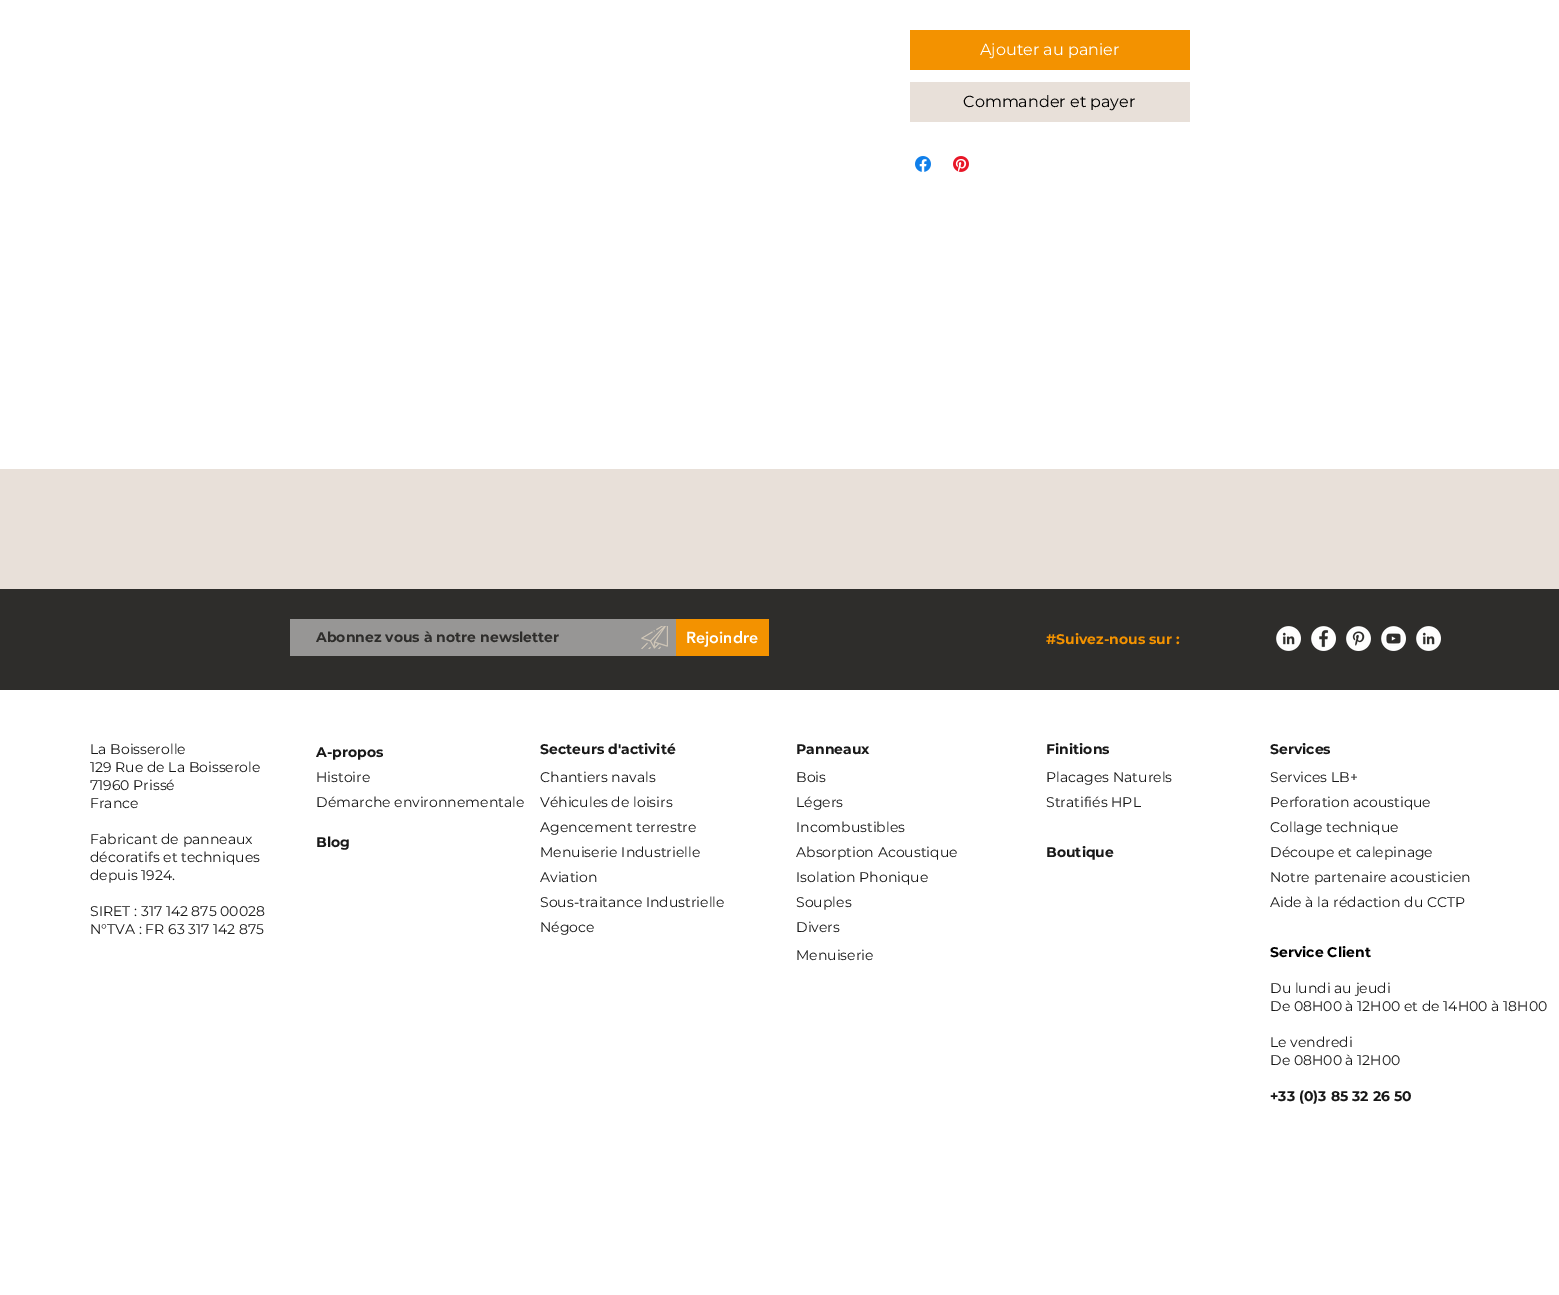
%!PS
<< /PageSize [1559 1295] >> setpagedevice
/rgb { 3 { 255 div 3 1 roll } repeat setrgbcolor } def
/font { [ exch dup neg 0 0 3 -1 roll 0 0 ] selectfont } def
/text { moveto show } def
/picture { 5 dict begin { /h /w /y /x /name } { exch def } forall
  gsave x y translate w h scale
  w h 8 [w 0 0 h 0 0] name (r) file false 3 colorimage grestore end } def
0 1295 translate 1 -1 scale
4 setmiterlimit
255 255 255 rgb
0 0 1559 1295 rectfill
243 146 0 rgb
910 30 280 40 rectfill
232 224 217 rgb
910 82 280 40 rectfill
(img_01.rgb) 915 156 16 16 picture
(img_02.rgb) 953 156 16 16 picture
0 469 1559 120 rectfill
46 45 43 rgb
0 589 1559 101 rectfill
151 150 149 rgb
290 619 386 37 rectfill
(img_03.rgb) 641 626 27 23 picture
243 146 0 rgb
676 619 93 37 rectfill
(img_04.rgb) 1276 626 25 25 picture
(img_05.rgb) 1311 626 25 25 picture
(img_06.rgb) 1346 626 25 25 picture
(img_07.rgb) 1381 626 25 25 picture
(img_04.rgb) 1416 626 25 25 picture
/Montserrat-Regular 16 font
255 255 255 rgb
(Ajouter au panier) 980 55 text
0 0 0 rgb
(Commander et payer) 963 107 text
/Montserrat-Bold 14 font
46 45 43 rgb
(Abonnez vous à notre newsletter) 316 642 text
/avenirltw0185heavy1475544-Black 16 font
255 255 255 rgb
(Rejoindre) 686 643 text
/Montserrat-Bold 14 font
243 146 0 rgb
(#Suivez-nous sur :) 1046 644 text
/Montserrat-Regular 14 font
24 24 24 rgb
(La Boisserolle) 90 754 text
(129 Rue de La Boisserole) 90 772 text
(71960 Prissé) 90 790 text
(France) 90 808 text
(Fabricant de panneaux) 90 844 text
(décoratifs et techniques) 90 862 text
(depuis 1924.) 90 880 text
(SIRET : 317 142 875 00028) 90 916 text
(N°TVA : FR 63 317 142 875) 90 934 text
/Montserrat-Bold 14 font
(A-propos) 316 757 text
(Secteurs d'activité) 540 754 text
(Panneaux) 796 754 text
(Finitions) 1046 754 text
(Services) 1270 754 text
/Montserrat-Regular 14 font
(Histoire) 316 782 text
(Chantiers navals) 540 782 text
(Bois) 796 782 text
(Placages Naturels) 1046 782 text
(Services LB+) 1270 782 text
(Démarche environnementale) 316 807 text
(Véhicules de loisirs) 540 807 text
(Légers) 796 807 text
(Stratifiés HPL) 1046 807 text
(Perforation acoustique) 1270 807 text
(Agencement terrestre) 540 832 text
(Incombustibles) 796 832 text
(Collage technique) 1270 832 text
/Montserrat-Bold 14 font
(Blog) 316 847 text
/Montserrat-Regular 14 font
(Menuiserie Industrielle) 540 857 text
(Absorption Acoustique) 796 857 text
/Montserrat-Bold 14 font
(Boutique) 1046 857 text
/Montserrat-Regular 14 font
(Découpe et calepinage) 1270 857 text
(Aviation) 540 882 text
(Isolation Phonique) 796 882 text
(Notre partenaire acousticien) 1270 882 text
(Sous-traitance Industrielle) 540 907 text
(Souples) 796 907 text
(Aide à la rédaction du CCTP) 1270 907 text
(Négoce) 540 932 text
(Divers) 796 932 text
(Menuiserie) 796 960 text
/Montserrat-Bold 14 font
0 0 0 rgb
(Service Client) 1270 957 text
/Montserrat-Regular 14 font
24 24 24 rgb
(Du lundi au jeudi) 1270 993 text
(De 08H00 à 12H00 et de 14H00 à 18H00) 1270 1011 text
(Le vendredi) 1270 1047 text
(De 08H00 à 12H00) 1270 1065 text
/Montserrat-Bold 14 font
(+33 \(0\)3 85 32 26 50) 1270 1101 text
showpage
